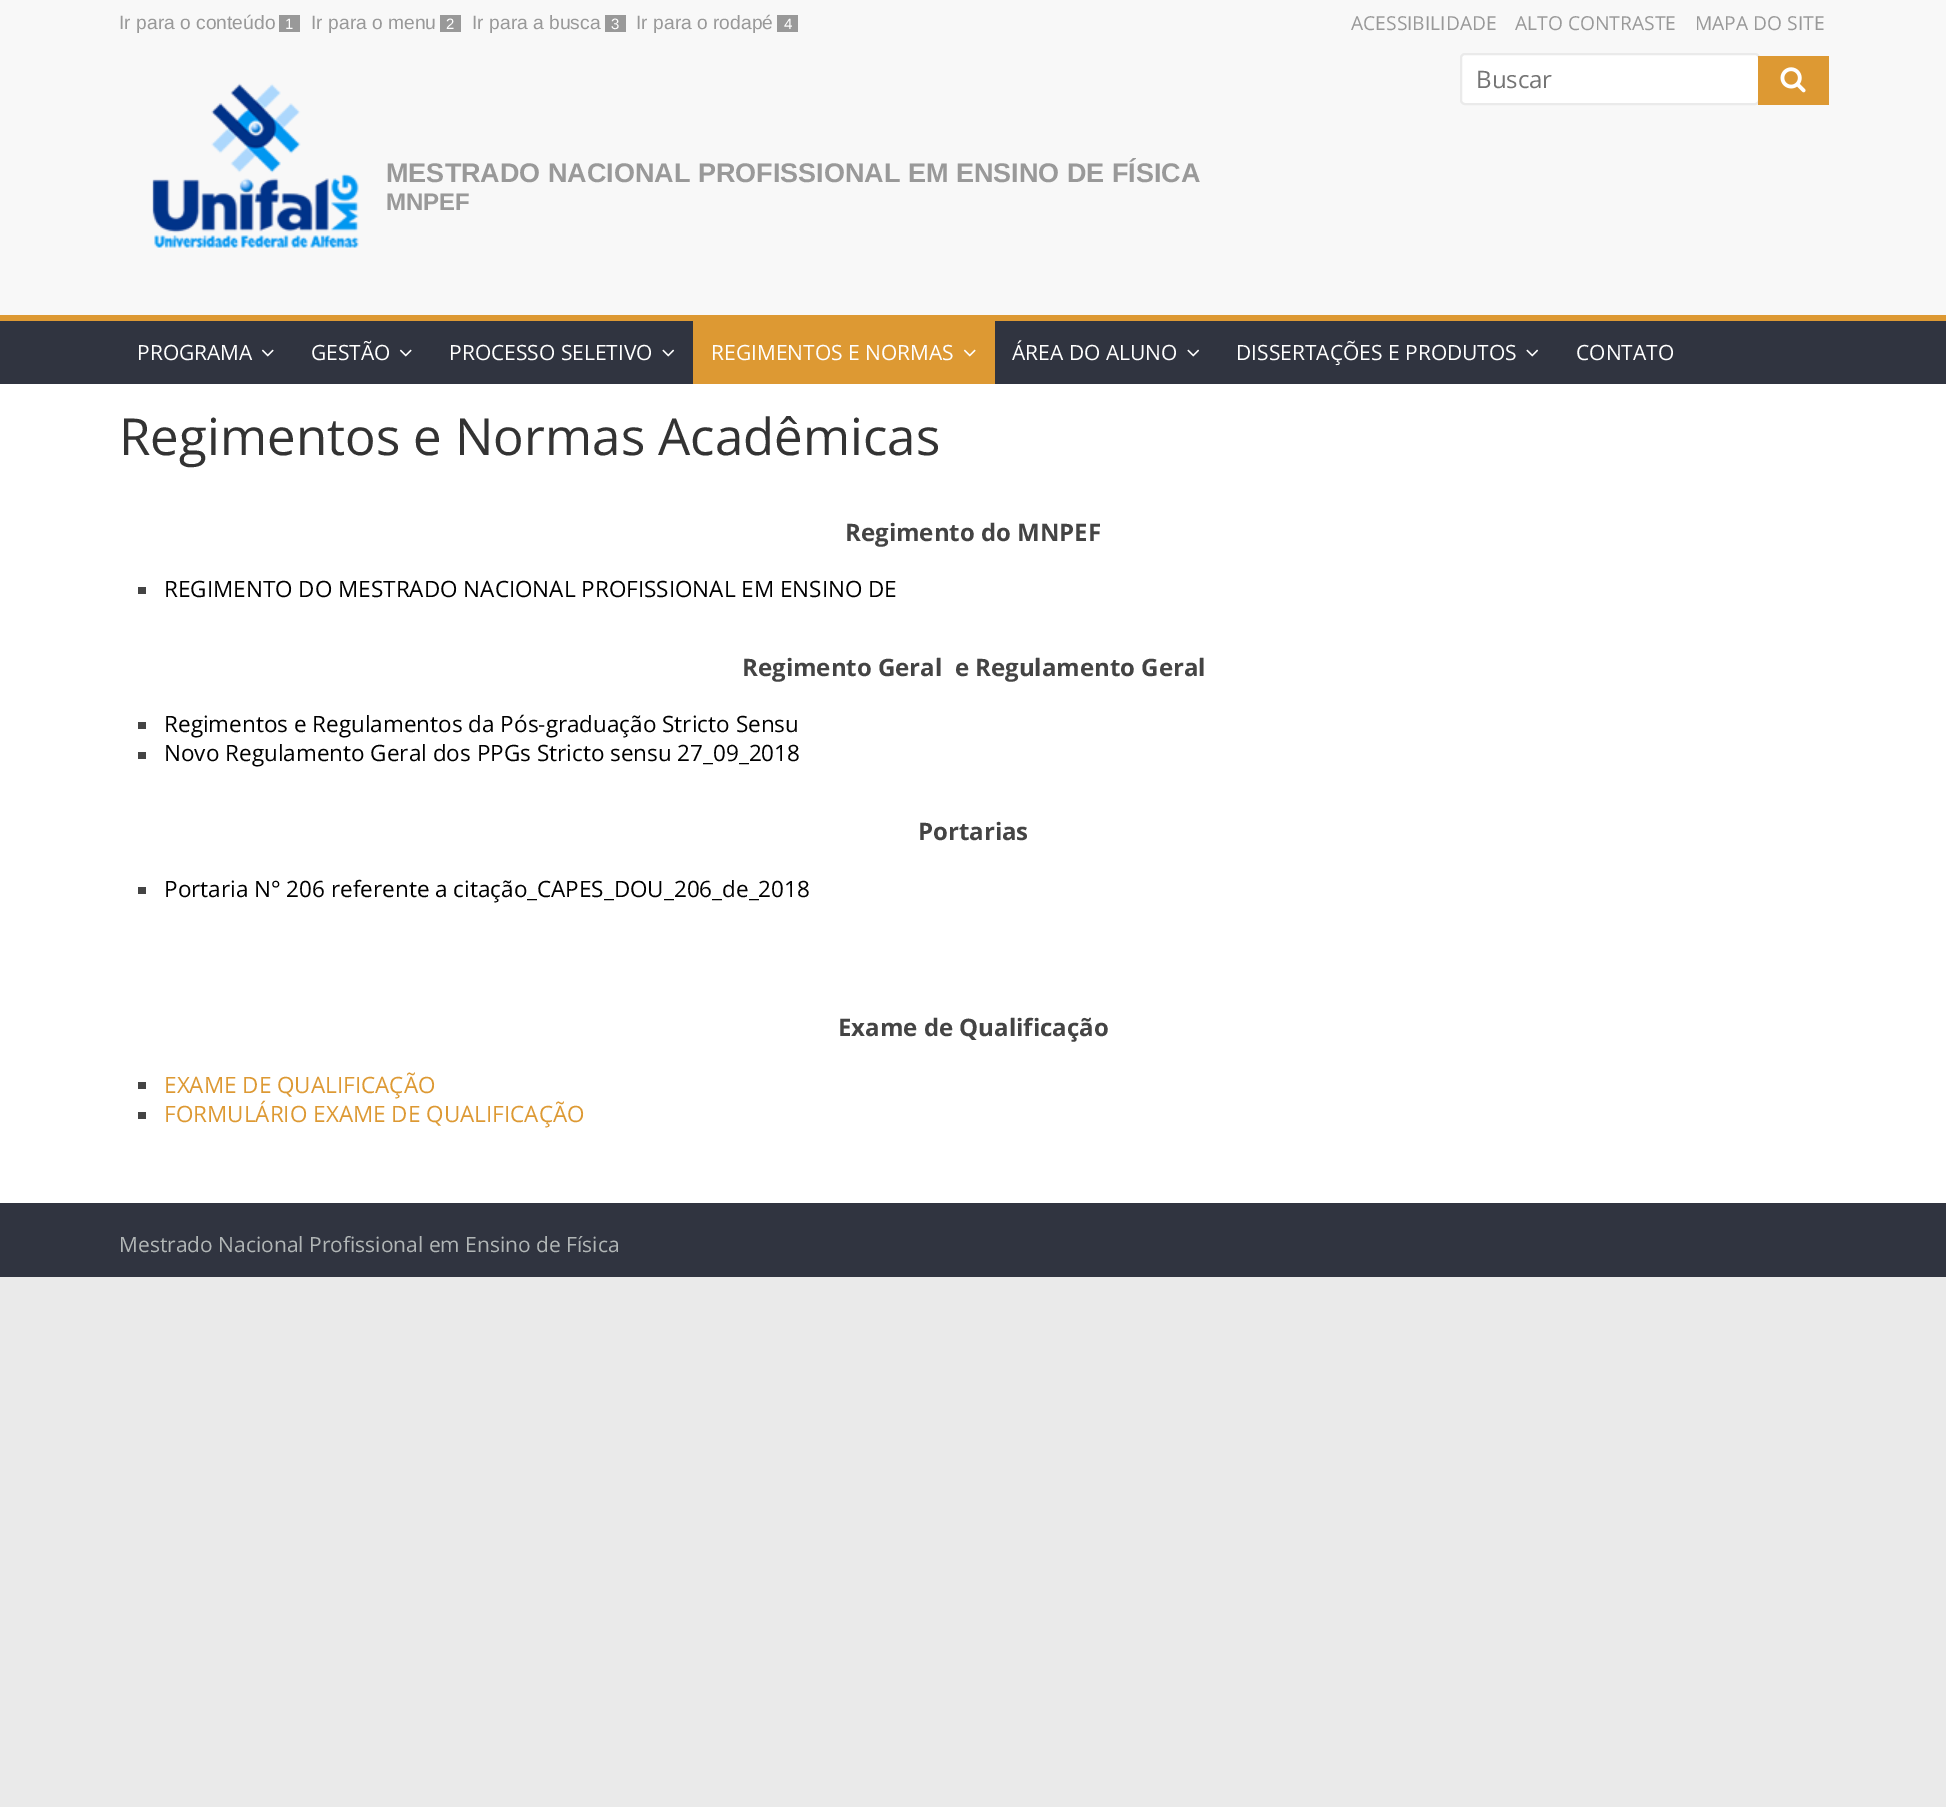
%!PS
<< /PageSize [1946 1807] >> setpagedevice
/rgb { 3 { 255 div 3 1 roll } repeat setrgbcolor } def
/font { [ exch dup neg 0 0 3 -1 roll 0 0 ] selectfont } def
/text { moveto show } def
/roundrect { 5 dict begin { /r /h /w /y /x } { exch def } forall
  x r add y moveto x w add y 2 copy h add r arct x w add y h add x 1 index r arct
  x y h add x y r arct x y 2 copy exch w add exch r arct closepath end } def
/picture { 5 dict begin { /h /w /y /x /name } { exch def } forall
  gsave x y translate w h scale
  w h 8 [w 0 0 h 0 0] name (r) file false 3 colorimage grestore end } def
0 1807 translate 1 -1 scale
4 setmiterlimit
234 234 234 rgb
0 0 1946 1807 rectfill
248 248 248 rgb
0 0 1946 315 rectfill
153 153 153 rgb
279 15 21 17 rectfill
440 15 21 17 rectfill
605 15 21 17 rectfill
777 15 21 17 rectfill
255 255 255 rgb
1461 54 298 50 4 roundrect gsave fill grestore
234 234 234 rgb
2 setlinewidth
stroke
221 153 51 rgb
1758 56 71 49 rectfill
(img_01.rgb) 1780 67 26 26 picture
(img_02.rgb) 152 83 207 165 picture
48 52 64 rgb
0 321 1946 63 rectfill
221 153 51 rgb
0 315 1946 6 rectfill
(img_03.rgb) 261 349 13 8 picture
(img_03.rgb) 399 349 13 8 picture
(img_04.rgb) 662 349 13 8 picture
693 321 302 63 rectfill
(img_05.rgb) 963 349 13 8 picture
(img_04.rgb) 1187 349 13 8 picture
(img_04.rgb) 1526 349 13 8 picture
255 255 255 rgb
0 384 1946 819 rectfill
68 68 68 rgb
138 587 8 7 rectfill
138 722 8 7 rectfill
138 752 8 7 rectfill
138 887 8 7 rectfill
138 1082 8 7 rectfill
138 1112 8 7 rectfill
48 52 64 rgb
0 1203 1946 74 rectfill
/LiberationSans-Regular 19.25 font
153 153 153 rgb
(Ir para o conteúdo) 119 29 text
/LiberationSans-Regular 15 font
255 255 255 rgb
(1) 285 29 text
/LiberationSans-Regular 19.25 font
153 153 153 rgb
(Ir para o menu) 311 29 text
/LiberationSans-Regular 15 font
255 255 255 rgb
(2) 446 29 text
/LiberationSans-Regular 19.25 font
153 153 153 rgb
(Ir para a busca) 472 29 text
/LiberationSans-Regular 15 font
255 255 255 rgb
(3) 611 29 text
/LiberationSans-Regular 19.25 font
153 153 153 rgb
(Ir para o rodapé) 636 29 text
/LiberationSans-Regular 15 font
255 255 255 rgb
(4) 784 29 text
/OpenSans-Regular 19.25 font
153 153 153 rgb
(ACESSIBILIDADE) 1351 30 text
(ALTO CONTRASTE) 1515 30 text
(MAPA DO SITE) 1695 30 text
/OpenSans-Regular 24 font
117 117 117 rgb
(Buscar) 1476 88 text
/LiberationSans-Bold 27 font
153 153 153 rgb
(MESTRADO NACIONAL PROFISSIONAL EM ENSINO DE FÍSICA) 386 182 text
/LiberationSans-Bold 24 font
(MNPEF) 386 210 text
/OpenSans-Regular 21 font
255 255 255 rgb
(PROGRAMA) 137 360 text
(GESTÃO) 311 360 text
(PROCESSO SELETIVO) 449 360 text
(REGIMENTOS E NORMAS) 711 360 text
(ÁREA DO ALUNO) 1012 360 text
(DISSERTAÇÕES E PRODUTOS) 1236 360 text
(CONTATO) 1576 360 text
/OpenSans-Regular 51 font
51 51 51 rgb
(Regimentos e Normas Acadêmicas) 119 455 text
/OpenSans-Bold 24 font
68 68 68 rgb
(Regimento do MNPEF) 845 541 text
/OpenSans-Regular 22.5 font
0 0 0 rgb
(REGIMENTO DO MESTRADO NACIONAL PROFISSIONAL EM ENSINO DE) 164 597 text
/OpenSans-Bold 24 font
68 68 68 rgb
(Regimento Geral  e Regulamento Geral) 742 676 text
/OpenSans-Regular 22.5 font
0 0 0 rgb
(Regimentos e Regulamentos da Pós-graduação Stricto Sensu) 164 732 text
(Novo Regulamento Geral dos PPGs Stricto sensu 27_09_2018) 164 761 text
/OpenSans-Bold 24 font
68 68 68 rgb
(Portarias) 918 840 text
/OpenSans-Regular 22.5 font
0 0 0 rgb
(Portaria N° 206 referente a citação_CAPES_DOU_206_de_2018) 164 897 text
/OpenSans-Bold 24 font
68 68 68 rgb
(Exame de Qualificação) 838 1036 text
/OpenSans-Regular 22.5 font
221 153 51 rgb
(EXAME DE QUALIFICAÇÃO) 164 1093 text
(FORMULÁRIO EXAME DE QUALIFICAÇÃO) 164 1122 text
/OpenSans-Regular 21 font
177 182 182 rgb
(Mestrado Nacional Profissional em Ensino de Física) 119 1252 text
showpage
